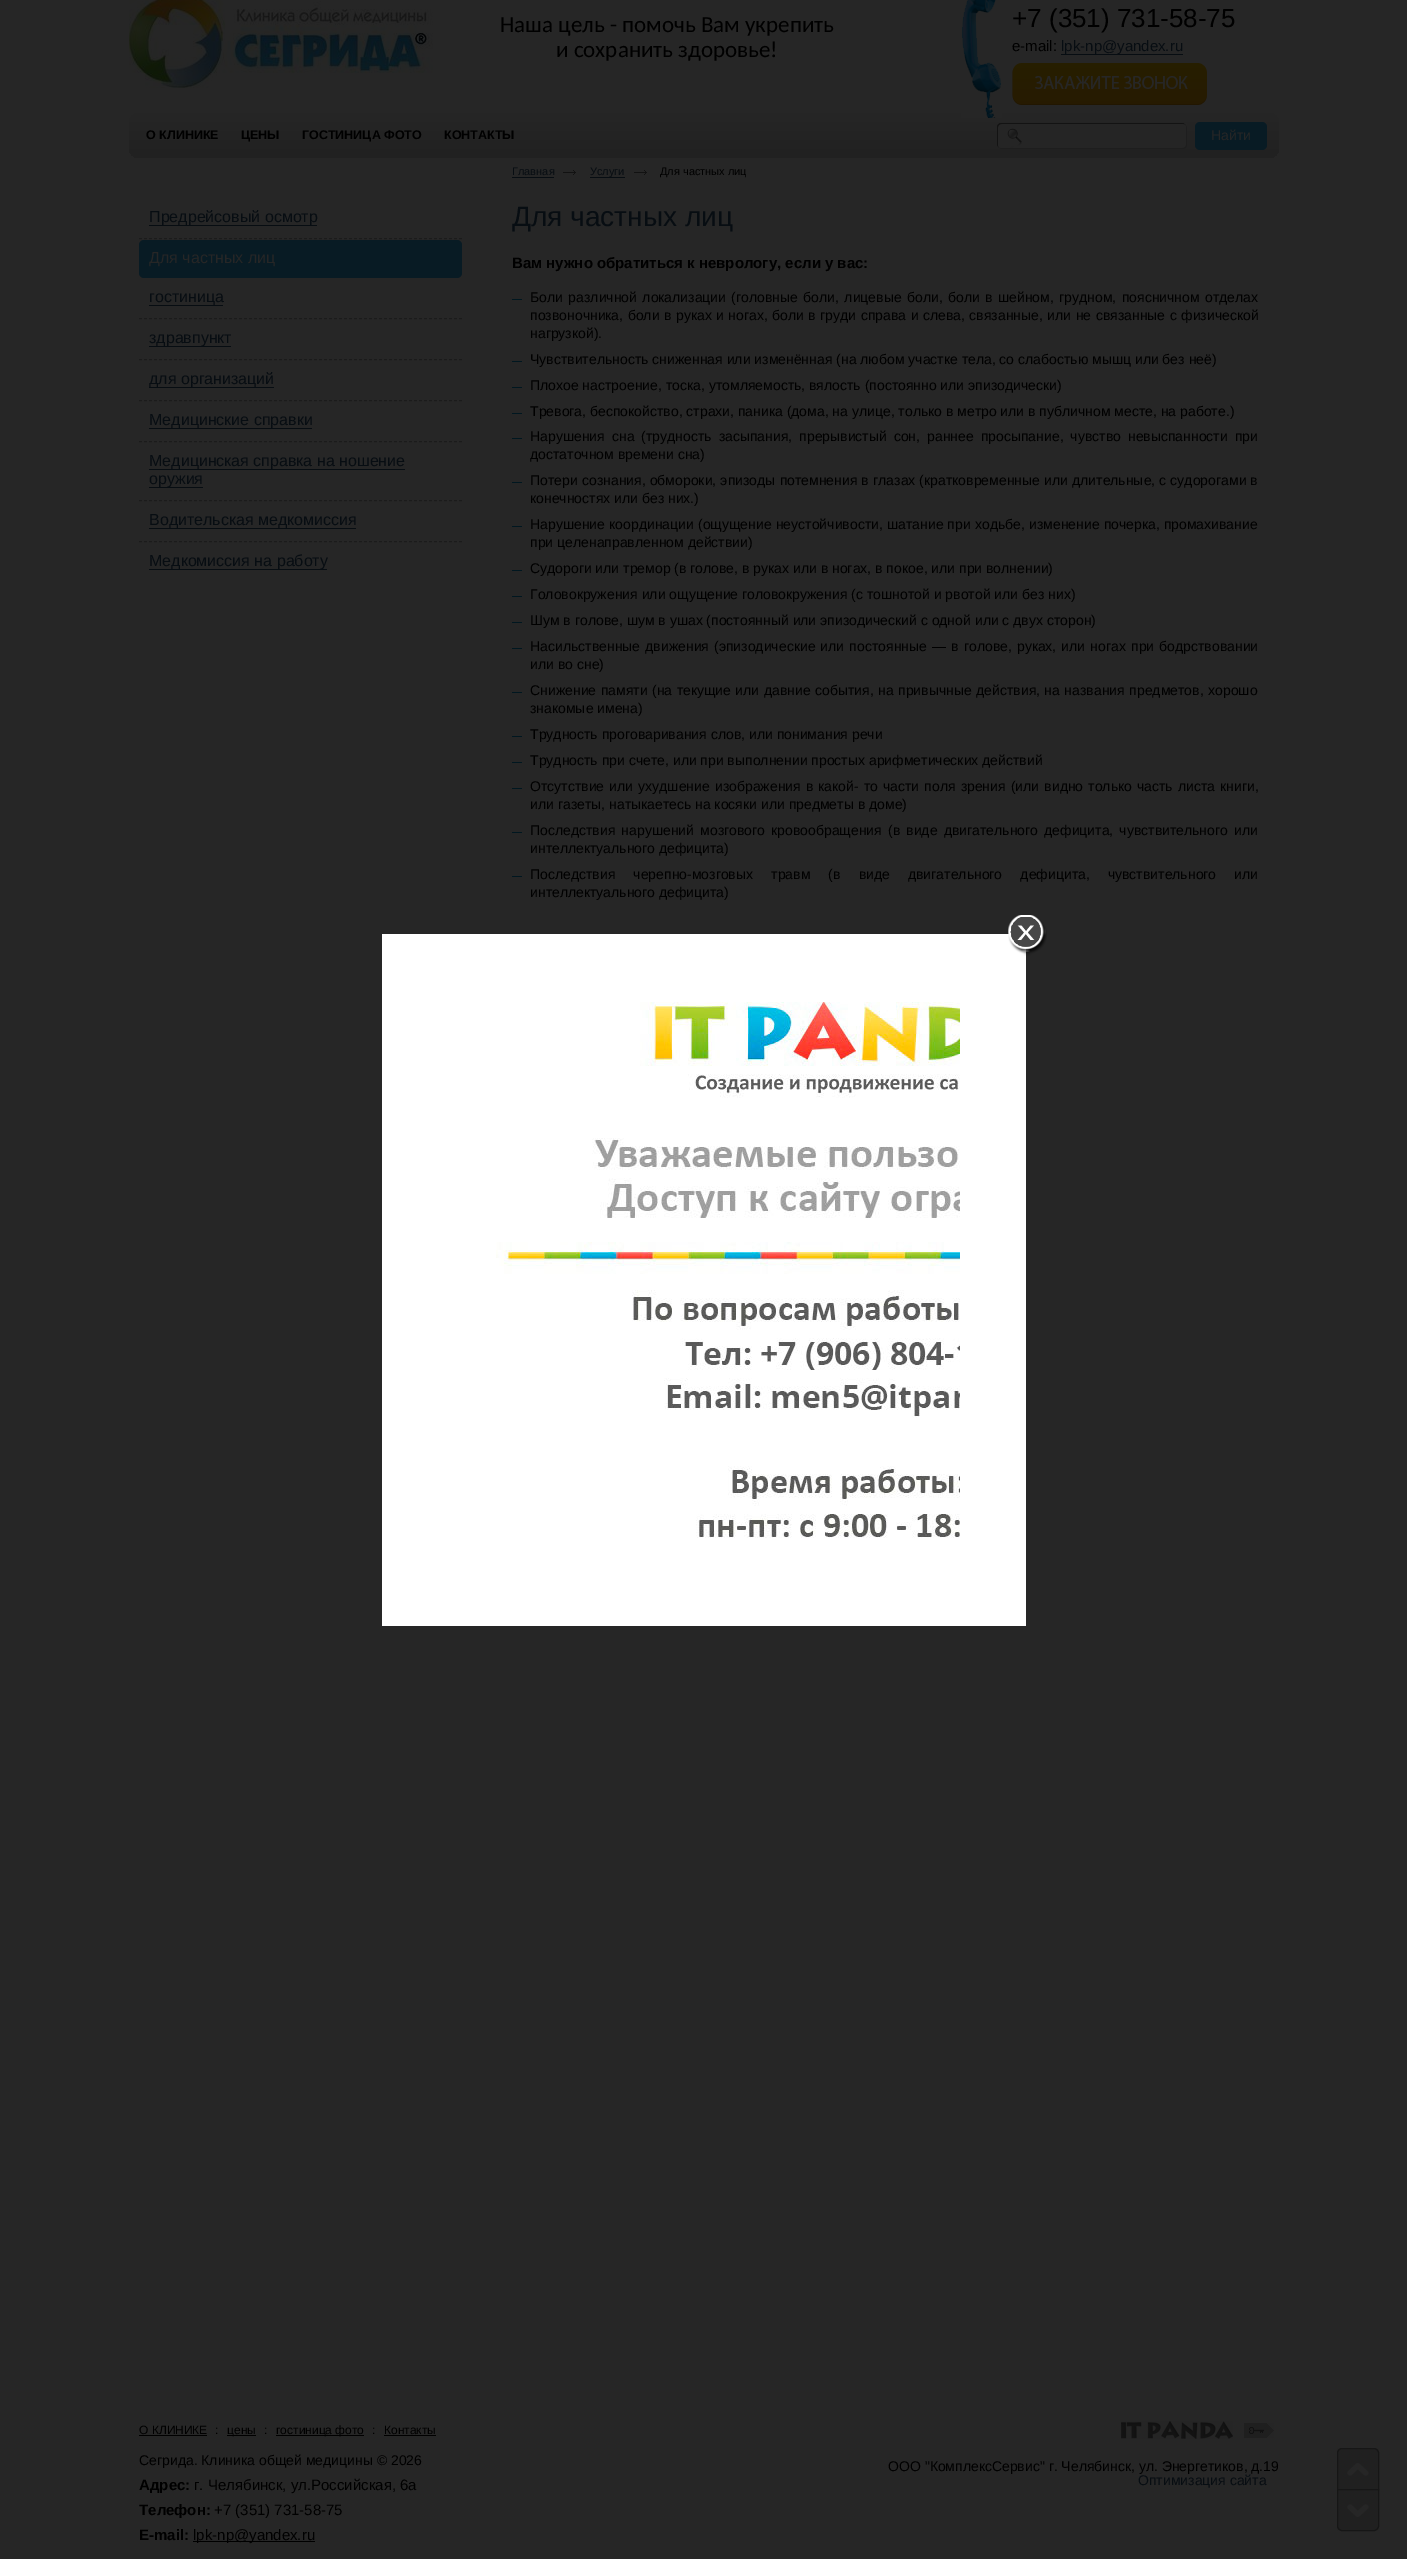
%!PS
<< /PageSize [1407 2559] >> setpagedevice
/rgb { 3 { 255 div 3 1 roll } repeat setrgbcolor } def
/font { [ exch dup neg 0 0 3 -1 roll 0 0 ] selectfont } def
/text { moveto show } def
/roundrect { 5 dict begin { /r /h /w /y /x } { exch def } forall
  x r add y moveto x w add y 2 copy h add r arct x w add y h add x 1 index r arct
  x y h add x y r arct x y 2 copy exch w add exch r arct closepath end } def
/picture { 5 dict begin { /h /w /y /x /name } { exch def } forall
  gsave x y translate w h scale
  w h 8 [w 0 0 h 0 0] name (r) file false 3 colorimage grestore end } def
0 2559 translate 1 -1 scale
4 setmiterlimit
38 38 38 rgb
0 0 1407 2559 rectfill
(img_01.rgb) 129 0 304 88 picture
gsave 129 113 1150 45 10 roundrect clip newpath
<< /ShadingType 2 /ColorSpace /DeviceRGB /Coords [704 113 704 158] /Extend [true true] /Function << /FunctionType 2 /Domain [0 1] /C0 [0.149 0.149 0.149] /C1 [0.129 0.129 0.129] /N 1 >> >> shfill grestore
(img_02.rgb) 961 0 41 118 picture
7 13 18 rgb
1061 54 122 1 rectfill
(img_03.rgb) 1012 63 195 42 picture
(img_04.rgb) 997 123 190 26 picture
8 27 36 rgb
1195 122 72 28 5 roundrect fill
27 27 27 rgb
[3 2] 0 setdash
139 238.5 moveto 323 0 rlineto stroke
7 13 18 rgb
149 225 168 1 rectfill
8 27 36 rgb
139 240 323 38 5 roundrect fill
27 27 27 rgb
139 318.5 moveto 323 0 rlineto stroke
7 13 18 rgb
149 305 74 1 rectfill
27 27 27 rgb
139 359.5 moveto 323 0 rlineto stroke
7 13 18 rgb
149 346 82 1 rectfill
27 27 27 rgb
139 400.5 moveto 323 0 rlineto stroke
7 13 18 rgb
149 387 125 1 rectfill
27 27 27 rgb
139 441.5 moveto 323 0 rlineto stroke
7 13 18 rgb
149 428 163 1 rectfill
27 27 27 rgb
139 500.5 moveto 323 0 rlineto stroke
7 13 18 rgb
149 469 256 1 rectfill
149 487 54 1 rectfill
27 27 27 rgb
139 541.5 moveto 323 0 rlineto stroke
7 13 18 rgb
149 528 207 1 rectfill
149 569 178 1 rectfill
512 177 42 1 rectfill
(img_05.rgb) 563 170 13 5 picture
590 177 35 1 rectfill
(img_05.rgb) 634 170 13 5 picture
0 23 32 rgb
512 299 10 1 rectfill
512 361 10 1 rectfill
512 387 10 1 rectfill
512 413 10 1 rectfill
512 438 10 1 rectfill
512 482 10 1 rectfill
512 526 10 1 rectfill
512 570 10 1 rectfill
512 596 10 1 rectfill
512 622 10 1 rectfill
512 648 10 1 rectfill
512 692 10 1 rectfill
512 736 10 1 rectfill
512 762 10 1 rectfill
512 788 10 1 rectfill
512 832 10 1 rectfill
512 876 10 1 rectfill
255 255 255 rgb
382 934 644 692 rectfill
(img_06.rgb) 1008 915 39 41 picture
(img_07.rgb) 496 1002 464 536 picture
0 0 0 rgb
139 2435 68 1 rectfill
227 2435 29 1 rectfill
276 2435 88 1 rectfill
384 2435 52 1 rectfill
(img_08.rgb) 1121 2421 112 18 picture
(img_09.rgb) 1244 2423 30 15 picture
193 2541 122 1 rectfill
(img_10.rgb) 1337 2448 42 41 picture
22 22 22 rgb
[] 0 setdash
1342 2448.5 moveto 32 0 rlineto 2.5 0 4.5 2 4.5 4.5 rcurveto 0 36.5 rlineto -41 0 rlineto 0 -36.5 rlineto 0 -2.5 2 -4.5 4.5 -4.5 rcurveto closepath stroke
(img_11.rgb) 1337 2490 42 41 picture
1337.5 2489.5 moveto 41 0 rlineto 0 36.5 rlineto 0 2.5 -2 4.5 -4.5 4.5 rcurveto -32 0 rlineto -2.5 0 -4.5 -2 -4.5 -4.5 rcurveto closepath stroke
/Carlito-Regular 23 font
0 0 0 rgb
(Наша цель - помочь Вам укрепить) 500 32 text
(и сохранить здоровье!) 556 57 text
/LiberationSans-Regular 26 font
(+7 \(351\) 731-58-75) 1012 27 text
/LiberationSans-Regular 15 font
(e-mail:) 1012 51 text
7 13 18 rgb
(lpk-np@yandex.ru) 1061 51 text
/LiberationSans-Regular 14 font
38 38 38 rgb
(Найти) 1211 140 text
/LiberationSans-Bold 12.5 font
0 0 0 rgb
(О КЛИНИКЕ) 146 139 text
(ЦЕНЫ) 241 139 text
(ГОСТИНИЦА ФОТО) 302 139 text
(КОНТАКТЫ) 444 139 text
/LiberationSans-Regular 16 font
7 13 18 rgb
(Предрейсовый осмотр) 149 222 text
38 38 38 rgb
(Для частных лиц) 149 263 text
7 13 18 rgb
(гостиница) 149 302 text
(здравпункт) 149 343 text
(для организаций) 149 384 text
(Медицинские справки) 149 425 text
(Медицинская справка на ношение) 149 466 text
(оружия) 149 484 text
(Водительская медкомиссия) 149 525 text
(Медкомиссия на работу) 149 566 text
/LiberationSans-Regular 11 font
(Главная) 512 175 text
(Услуги) 590 175 text
0 0 0 rgb
(Для частных лиц) 660 175 text
/LiberationSans-Regular 28 font
7 13 18 rgb
(Для частных лиц) 512 226 text
/LiberationSans-Bold 15 font
0 0 0 rgb
(Вам нужно обратиться к неврологу, если у вас:) 512 268 text
/LiberationSans-Regular 14 font
530 302 moveto 1.5 0 32 (Боли различной локализации \(головные боли, лицевые боли, боли в шейном, грудном, поясничном отделах) widthshow
530 320 moveto 0.6 0 32 (позвоночника, боли в руках и ногах, боли в груди справа и слева, связанные, или не связанные с физической) widthshow
(нагрузкой\).) 530 338 text
(Чувствительность сниженная или изменённая \(на любом участке тела, со слабостью мышц или без неё\)) 530 364 text
(Плохое настроение, тоска, утомляемость, вялость \(постоянно или эпизодически\)) 530 390 text
(Тревога, беспокойство, страхи, паника \(дома, на улице, только в метро или в публичном месте, на работе.\)) 530 416 text
530 441 moveto 3.1 0 32 (Нарушения сна \(трудность засыпания, прерывистый сон, раннее просыпание, чувство невыспанности при) widthshow
(достаточном времени сна\)) 530 459 text
530 485 moveto 0.25 0 32 (Потери сознания, обмороки, эпизоды потемнения в глазах \(кратковременные или длительные, с судорогами в) widthshow
(конечностях или без них.\)) 530 503 text
530 529 moveto 0.25 0 32 (Нарушение координации \(ощущение неустойчивости, шатание при ходьбе, изменение почерка, промахивание) widthshow
(при целенаправленном действии\)) 530 547 text
(Судороги или тремор \(в голове, в руках или в ногах, в покое, или при волнении\)) 530 573 text
(Головокружения или ощущение головокружения \(с тошнотой и рвотой или без них\)) 530 599 text
(Шум в голове, шум в ушах \(постоянный или эпизодический с одной или с двух сторон\)) 530 625 text
530 651 moveto 1.25 0 32 (Насильственные движения \(эпизодические или постоянные — в голове, руках, или ногах при бодрствовании) widthshow
(или во сне\)) 530 669 text
530 695 moveto 0.6 0 32 (Снижение памяти \(на текущие или давние события, на привычные действия, на названия предметов, хорошо) widthshow
(знакомые имена\)) 530 713 text
(Трудность проговаривания слов, или понимания речи) 530 739 text
(Трудность при счете, или при выполнении простых арифметических действий) 530 765 text
530 791 moveto 1.2 0 32 (Отсутствие или ухудшение изображения в какой- то части поля зрения \(или видно только часть листа книги,) widthshow
(или газеты, натыкаетесь на косяки или предметы в доме\)) 530 809 text
530 835 moveto 2.25 0 32 (Последствия нарушений мозгового кровообращения \(в виде двигательного дефицита, чувствительного или) widthshow
(интеллектуального дефицита\)) 530 853 text
530 879 moveto 14.25 0 32 (Последствия черепно-мозговых травм \(в виде двигательного дефицита, чувствительного или) widthshow
(интеллектуального дефицита\)) 530 897 text
/LiberationSans-Regular 12 font
(О КЛИНИКЕ) 139 2434 text
(:) 215 2434 text
(цены) 227 2434 text
(:) 264 2434 text
(гостиница фото) 276 2434 text
(:) 372 2434 text
(Контакты) 384 2434 text
/LiberationSans-Regular 14 font
(Сегрида. Клиника общей медицины © 2026) 139 2465 text
/LiberationSans-Bold 15 font
(Адрес:) 139 2490 text
/LiberationSans-Regular 15 font
(г. Челябинск, ул.Российская, 6а) 194 2490 text
/LiberationSans-Bold 15 font
(Телефон:) 139 2515 text
/LiberationSans-Regular 15 font
(+7 \(351\) 731-58-75) 214 2515 text
/LiberationSans-Bold 15 font
(E-mail:) 139 2540 text
/LiberationSans-Regular 15 font
(lpk-np@yandex.ru) 193 2540 text
/LiberationSans-Regular 14 font
(OOO "КомплексСервис" г. Челябинск, ул. Энергетиков, д.19) 888 2471 text
7 13 18 rgb
(Оптимизация сайта) 1138 2485 text
showpage
